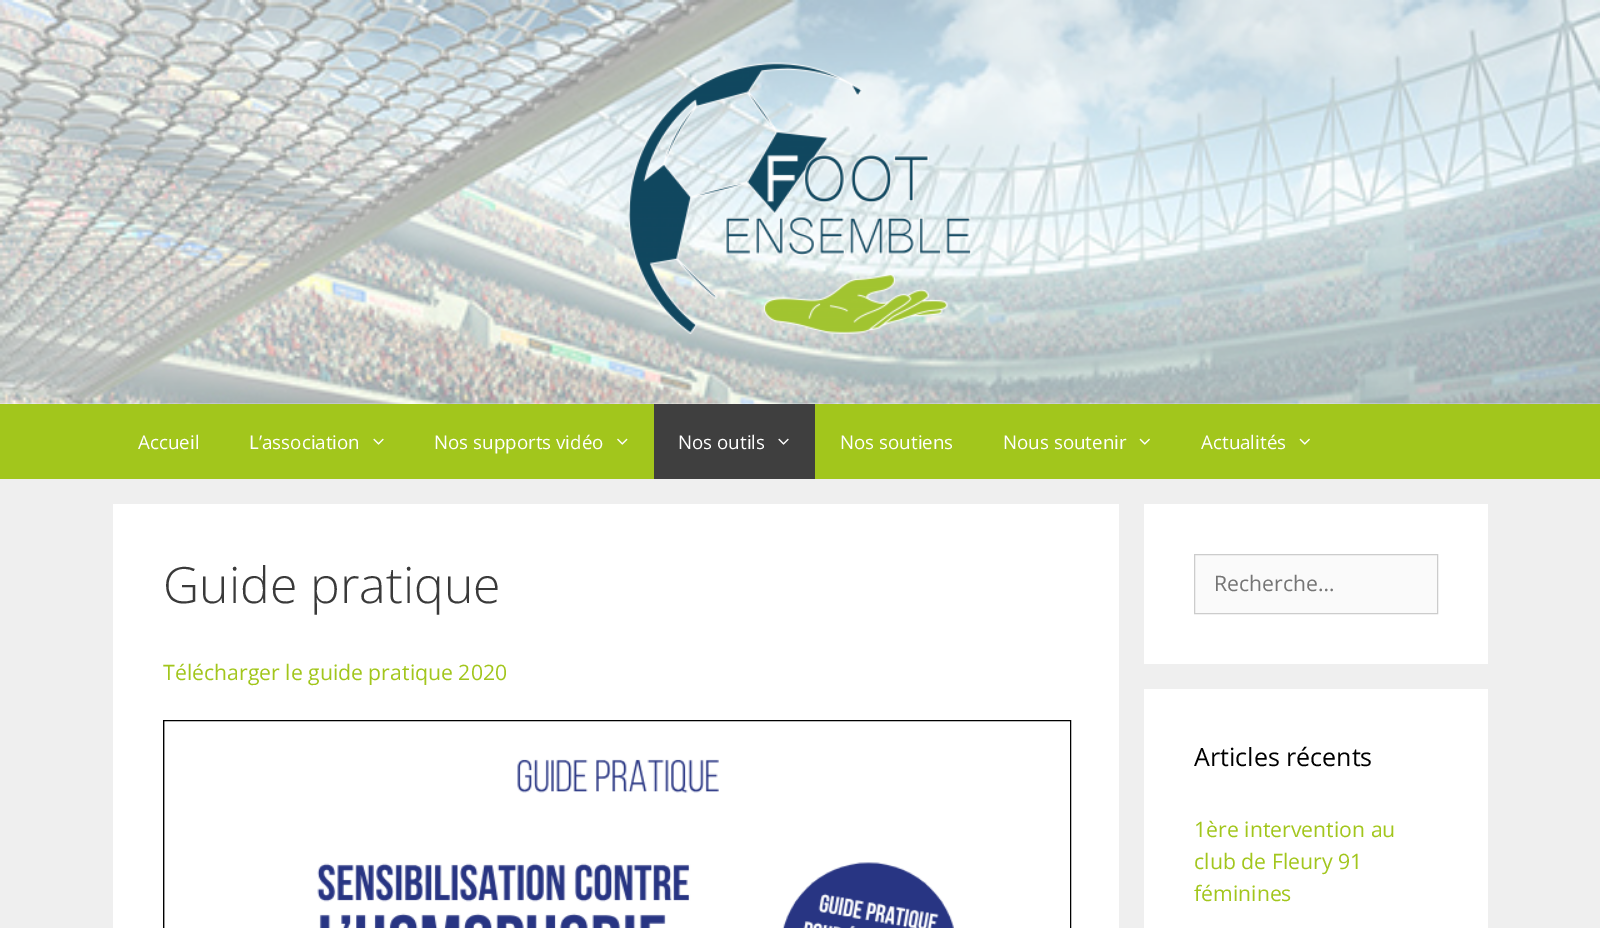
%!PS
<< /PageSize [1600 928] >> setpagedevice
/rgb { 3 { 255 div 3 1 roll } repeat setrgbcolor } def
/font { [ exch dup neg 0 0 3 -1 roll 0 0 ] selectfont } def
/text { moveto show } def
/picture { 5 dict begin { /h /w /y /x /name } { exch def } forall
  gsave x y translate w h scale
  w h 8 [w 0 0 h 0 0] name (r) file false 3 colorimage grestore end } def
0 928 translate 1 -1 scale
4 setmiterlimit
239 239 239 rgb
0 0 1600 928 rectfill
255 255 255 rgb
0 0 1600 404 rectfill
(img_01.rgb) 0 0 1600 404 picture
(img_02.rgb) 628 62 344 273 picture
162 198 28 rgb
0 404 1600 75 rectfill
(img_03.rgb) 373 438 11 7 picture
(img_04.rgb) 617 438 11 7 picture
63 63 63 rgb
654 404 161 75 rectfill
(img_05.rgb) 778 438 11 7 picture
(img_06.rgb) 1139 438 11 7 picture
(img_06.rgb) 1299 438 11 7 picture
255 255 255 rgb
113 504 1006 424 rectfill
211 211 211 rgb
164 721 1 207 rectfill
0 0 0 rgb
163.5 720.5 907 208 rectstroke
(img_07.rgb) 317 759 637 169 picture
255 255 255 rgb
1144 504 344 160 rectfill
250 250 250 rgb
1194.5 554.5 moveto 243 0 rlineto 0 59 rlineto -243 0 rlineto closepath gsave fill grestore
204 204 204 rgb
stroke
255 255 255 rgb
1144 689 344 239 rectfill
/OpenSans-Regular 18.75 font
(Accueil) 138 449 text
(L’association) 249 449 text
(Nos supports vidéo) 434 449 text
(Nos outils) 678 449 text
(Nos soutiens) 840 449 text
(Nous soutenir) 1003 449 text
(Actualités) 1201 449 text
/OpenSans-Light 50 font
58 58 58 rgb
(Guide pratique) 163 603 text
/OpenSans-Regular 21.25 font
162 198 28 rgb
(Télécharger le guide pratique 2020) 163 680 text
117 117 117 rgb
(Recherche…) 1214 591 text
/OpenSans-Regular 25 font
0 0 0 rgb
(Articles récents) 1194 766 text
/OpenSans-Regular 21.25 font
162 198 28 rgb
(1ère intervention au) 1194 837 text
(club de Fleury 91) 1194 869 text
(féminines) 1194 901 text
showpage
